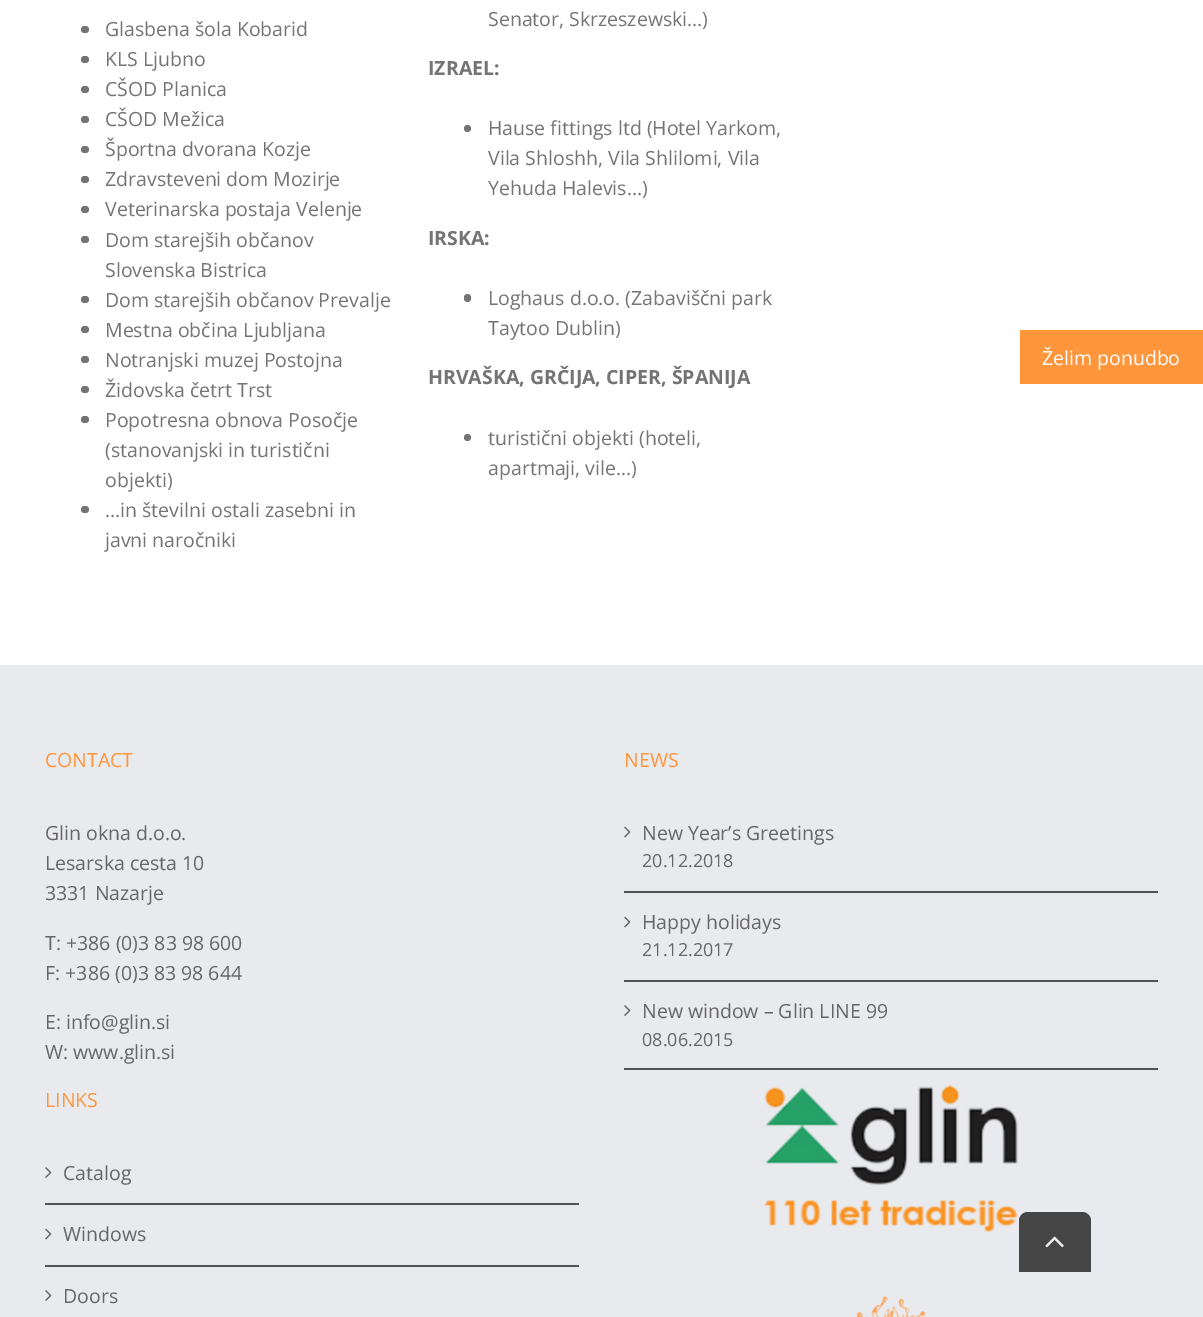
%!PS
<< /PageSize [1203 1317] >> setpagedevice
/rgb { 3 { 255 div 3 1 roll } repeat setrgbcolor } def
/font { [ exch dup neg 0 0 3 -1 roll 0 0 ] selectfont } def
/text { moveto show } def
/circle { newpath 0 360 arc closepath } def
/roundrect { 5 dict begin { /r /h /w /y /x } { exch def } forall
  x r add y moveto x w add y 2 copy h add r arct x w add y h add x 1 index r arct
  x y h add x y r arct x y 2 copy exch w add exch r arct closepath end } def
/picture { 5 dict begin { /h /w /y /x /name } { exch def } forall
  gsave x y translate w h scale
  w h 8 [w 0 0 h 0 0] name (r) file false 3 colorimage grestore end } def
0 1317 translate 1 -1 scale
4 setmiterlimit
255 255 255 rgb
0 0 1203 1317 rectfill
116 116 116 rgb
81 26 8 7 3.5 roundrect fill
81 56 8 7 3.5 roundrect fill
81 86 8 7 3.5 roundrect fill
81 116 8 7 3.5 roundrect fill
81 146 8 7 3.5 roundrect fill
81 176 8 7 3.5 roundrect fill
81 206 8 7 3.5 roundrect fill
81 236 8 7 3.5 roundrect fill
81 296 8 7 3.5 roundrect fill
81 326 8 7 3.5 roundrect fill
81 356 8 7 3.5 roundrect fill
81 386 8 7 3.5 roundrect fill
81 416 8 7 3.5 roundrect fill
81 506 8 7 3.5 roundrect fill
467.5 128.5 3.5 circle fill
464 294 7 8 3.5 roundrect fill
467.5 437.5 3.5 circle fill
233 234 238 rgb
0 665 1203 652 rectfill
80 81 82 rgb
624 891 534 2 rectfill
(img_01.rgb) 624 826 7 12 picture
624 980 534 2 rectfill
(img_01.rgb) 624 916 7 12 picture
624 1068 534 2 rectfill
(img_02.rgb) 624 1005 7 11 picture
45 1203 534 2 rectfill
(img_02.rgb) 45 1167 7 11 picture
45 1265 534 2 rectfill
(img_01.rgb) 45 1228 7 12 picture
(img_02.rgb) 45 1290 7 11 picture
(img_03.rgb) 764 1085 254 147 picture
(img_04.rgb) 856 1296 70 21 picture
255 150 59 rgb
1020 330 183 54 rectfill
69 69 70 rgb
1028 1212 moveto 54 0 rlineto 5 0 9 4 9 9 rcurveto 0 51 rlineto -72 0 rlineto 0 -51 rlineto 0 -5 4 -9 9 -9 rcurveto closepath fill
(img_05.rgb) 1045 1236 19 12 picture
/OpenSans-Regular 19.5 font
116 116 116 rgb
(Glasbena šola Kobarid) 105 36 text
(KLS Ljubno) 105 66 text
(CŠOD Planica) 105 96 text
(CŠOD Mežica) 105 126 text
(Športna dvorana Kozje) 105 156 text
(Zdravsteveni dom Mozirje) 105 186 text
(Veterinarska postaja Velenje) 105 216 text
(Dom starejših občanov) 105 247 text
(Slovenska Bistrica) 105 277 text
(Dom starejših občanov Prevalje) 105 307 text
(Mestna občina Ljubljana) 105 337 text
(Notranjski muzej Postojna) 105 367 text
(Židovska četrt Trst) 105 397 text
(Popotresna obnova Posočje) 105 427 text
(\(stanovanjski in turistični) 105 457 text
(objekti\)) 105 487 text
(…in številni ostali zasebni in) 105 517 text
(javni naročniki) 105 547 text
(Senator, Skrzeszewski…\)) 488 26 text
/OpenSans-Bold 19.5 font
(IZRAEL:) 428 75 text
/OpenSans-Regular 19.5 font
(Hause fittings ltd \(Hotel Yarkom,) 488 135 text
(Vila Shloshh, Vila Shlilomi, Vila) 488 165 text
(Yehuda Halevis…\)) 488 195 text
/OpenSans-Bold 19.5 font
(IRSKA:) 428 245 text
/OpenSans-Regular 19.5 font
(Loghaus d.o.o. \(Zabaviščni park) 488 305 text
(Taytoo Dublin\)) 488 335 text
/OpenSans-Bold 19.5 font
(HRVAŠKA, GRČIJA, CIPER, ŠPANIJA) 428 384 text
/OpenSans-Regular 19.5 font
(turistični objekti \(hoteli,) 488 445 text
(apartmaji, vile…\)) 488 475 text
255 150 59 rgb
(CONTACT) 45 767 text
102 102 102 rgb
(Glin okna d.o.o.) 45 840 text
(Lesarska cesta 10) 45 870 text
(3331 Nazarje) 45 900 text
(T: +386 \(0\)3 83 98 600) 45 950 text
(F: +386 \(0\)3 83 98 644) 45 980 text
(E: info@glin.si) 45 1029 text
(W: www.glin.si) 45 1059 text
255 150 59 rgb
(NEWS) 624 767 text
102 102 102 rgb
(New Year’s Greetings) 642 840 text
/OpenSans-Regular 18 font
(20.12.2018) 642 867 text
/OpenSans-Regular 19.5 font
(Happy holidays) 642 929 text
/OpenSans-Regular 18 font
(21.12.2017) 642 956 text
/OpenSans-Regular 19.5 font
(New window – Glin LINE 99) 642 1018 text
/OpenSans-Regular 18 font
(08.06.2015) 642 1046 text
/OpenSans-Regular 19.5 font
255 150 59 rgb
(LINKS) 45 1107 text
102 102 102 rgb
(Catalog) 63 1180 text
(Windows) 63 1241 text
(Doors) 63 1303 text
255 255 255 rgb
(Želim ponudbo) 1042 365 text
showpage
